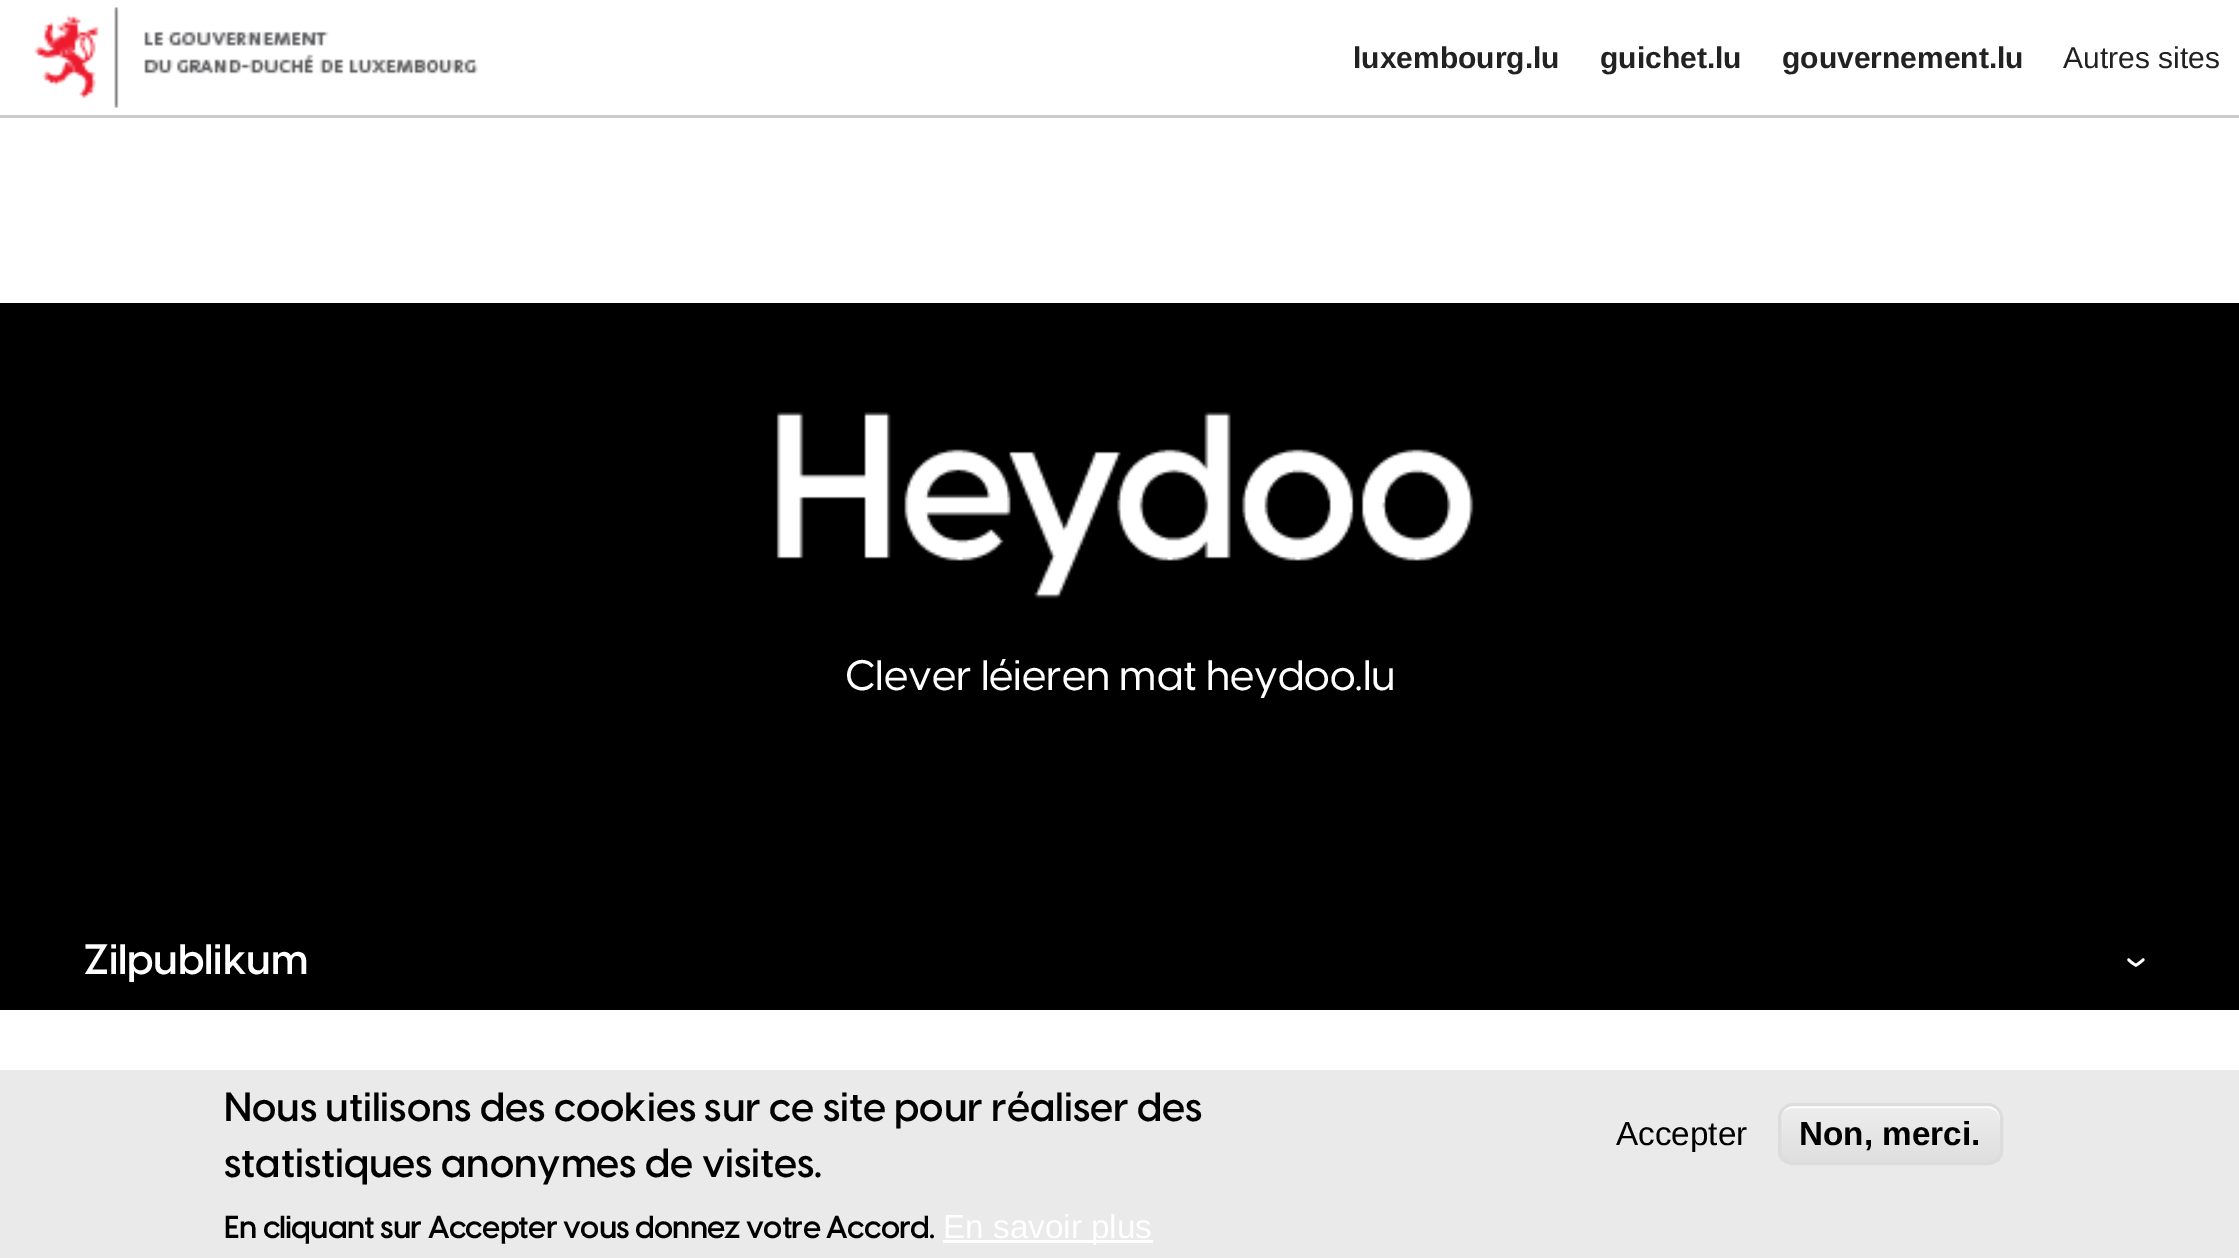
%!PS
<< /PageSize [2239 1258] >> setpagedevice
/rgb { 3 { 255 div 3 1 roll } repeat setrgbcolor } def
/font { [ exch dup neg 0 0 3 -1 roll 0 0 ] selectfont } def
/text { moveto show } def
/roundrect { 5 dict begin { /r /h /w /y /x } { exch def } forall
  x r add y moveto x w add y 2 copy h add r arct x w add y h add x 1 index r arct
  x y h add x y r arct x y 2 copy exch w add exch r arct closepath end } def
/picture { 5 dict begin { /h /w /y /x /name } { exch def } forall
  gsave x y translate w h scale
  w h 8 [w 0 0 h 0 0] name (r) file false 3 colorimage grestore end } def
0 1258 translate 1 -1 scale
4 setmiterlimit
255 255 255 rgb
0 0 2239 1258 rectfill
204 202 202 rgb
0 115 2239 3 rectfill
(img_01.rgb) 34 7 445 101 picture
0 0 0 rgb
0 303 2239 707 rectfill
(img_02.rgb) 776 412 698 187 picture
(img_03.rgb) 2127 958 18 9 picture
234 234 234 rgb
0 1070 2239 188 rectfill
255 255 255 rgb
943 1240 210 3 rectfill
gsave
1778 1103 225 62 15 roundrect clip newpath
gsave 1778 1105 moveto 225 0 rlineto 0 58 rlineto -225 0 rlineto closepath clip newpath
<< /ShadingType 2 /ColorSpace /DeviceRGB /Coords [1890 1105 1890 1163] /Extend [true true] /Function << /FunctionType 3 /Domain [0 1] /Functions [<< /FunctionType 2 /Domain [0 1] /C0 [0.929 0.929 0.929] /C1 [0.929 0.929 0.929] /N 1 >> << /FunctionType 2 /Domain [0 1] /C0 [0.929 0.929 0.929] /C1 [0.875 0.875 0.875] /N 1 >>] /Bounds [0.05] /Encode [0 1 0 1] >> >> shfill grestore
grestore
1792 1108 moveto 196 0 rlineto 6 0 12 5 12 12 rcurveto 0 -2 rlineto 0 -7 -6 -13 -13 -13 rcurveto -194 0 rlineto -7 0 -13 6 -13 13 rcurveto 0 2 rlineto 0 -7 6 -12 12 -12 rcurveto closepath fill
220 220 220 rgb
3 setlinewidth
1779.5 1104.5 222 59 13.5 roundrect stroke
/LiberationSans-Bold 30 font
34 34 34 rgb
(luxembourg.lu) 1353 68 text
(guichet.lu) 1600 68 text
(gouvernement.lu) 1782 68 text
/LiberationSans-Regular 30 font
(Autres sites) 2063 68 text
/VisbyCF-Medium 41.9 font
255 255 255 rgb
(Clever léieren mat heydoo.lu) 845 690 text
/VisbyCF-SemiBold 41.9 font
(Zilpublikum) 84 974 text
/VisbyCF-SemiBold 40 font
0 0 0 rgb
(Nous utilisons des cookies sur ce site pour réaliser des) 224 1121 text
(statistiques anonymes de visites.) 224 1177 text
/VisbyCF-Bold 30 font
(En cliquant sur Accepter vous donnez votre Accord.) 224 1238 text
/LiberationSans-Regular 33.25 font
255 255 255 rgb
(En savoir plus) 943 1238 text
0 0 0 rgb
(Accepter) 1616 1145 text
/LiberationSans-Bold 33.25 font
(Non, merci.) 1799 1145 text
showpage
